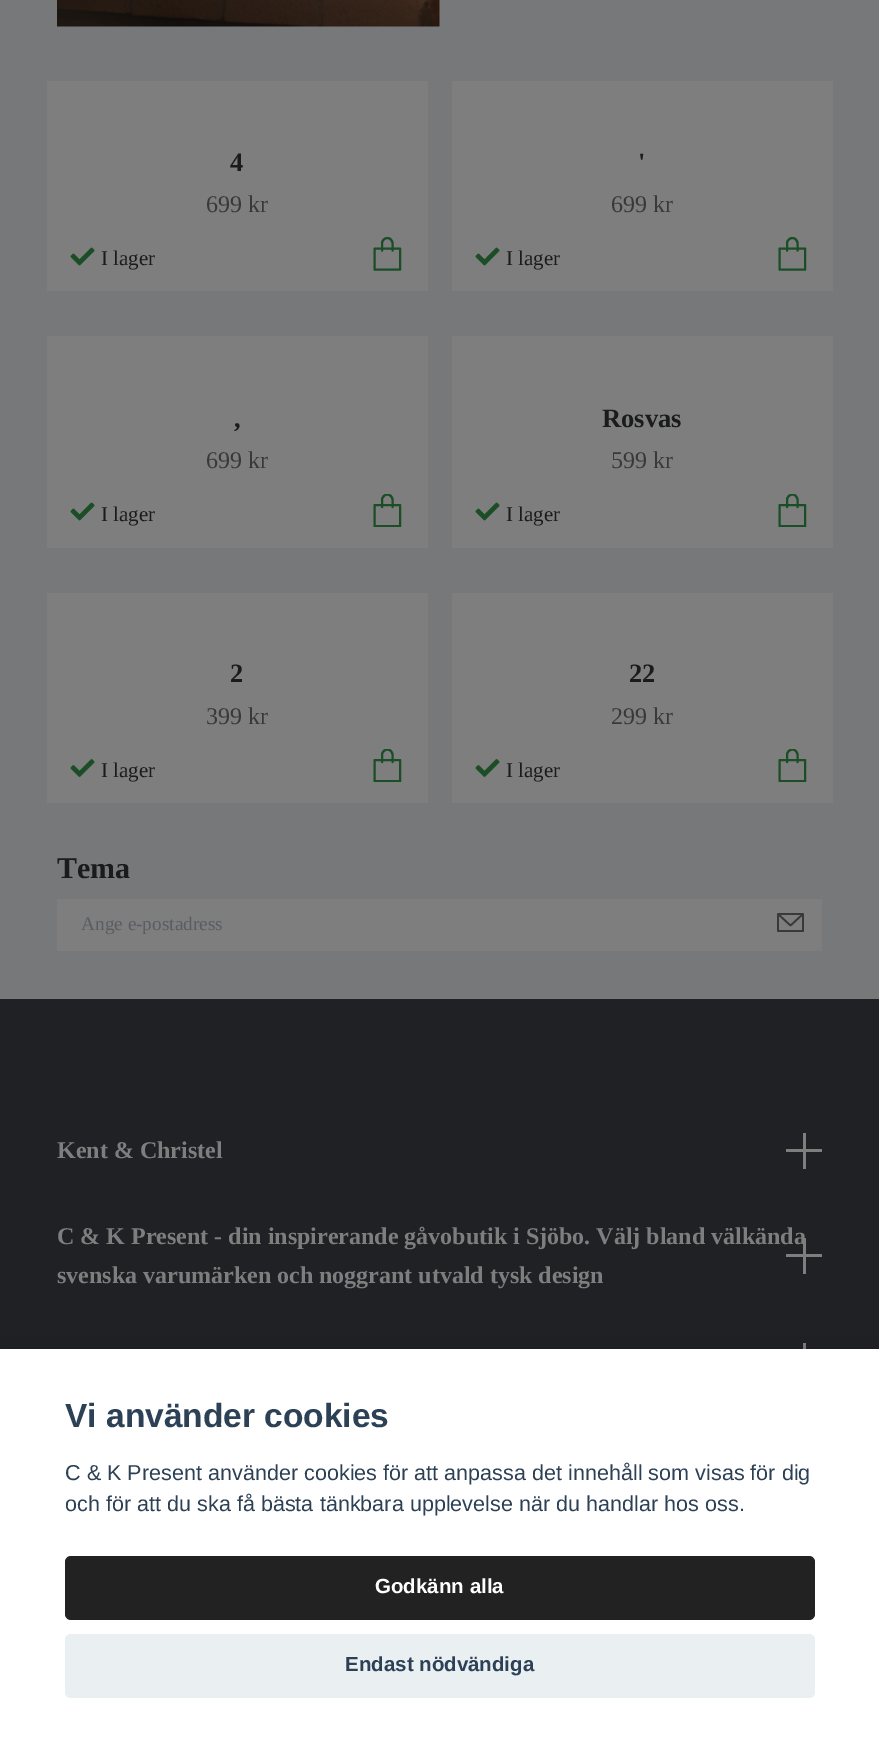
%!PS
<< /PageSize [879 1745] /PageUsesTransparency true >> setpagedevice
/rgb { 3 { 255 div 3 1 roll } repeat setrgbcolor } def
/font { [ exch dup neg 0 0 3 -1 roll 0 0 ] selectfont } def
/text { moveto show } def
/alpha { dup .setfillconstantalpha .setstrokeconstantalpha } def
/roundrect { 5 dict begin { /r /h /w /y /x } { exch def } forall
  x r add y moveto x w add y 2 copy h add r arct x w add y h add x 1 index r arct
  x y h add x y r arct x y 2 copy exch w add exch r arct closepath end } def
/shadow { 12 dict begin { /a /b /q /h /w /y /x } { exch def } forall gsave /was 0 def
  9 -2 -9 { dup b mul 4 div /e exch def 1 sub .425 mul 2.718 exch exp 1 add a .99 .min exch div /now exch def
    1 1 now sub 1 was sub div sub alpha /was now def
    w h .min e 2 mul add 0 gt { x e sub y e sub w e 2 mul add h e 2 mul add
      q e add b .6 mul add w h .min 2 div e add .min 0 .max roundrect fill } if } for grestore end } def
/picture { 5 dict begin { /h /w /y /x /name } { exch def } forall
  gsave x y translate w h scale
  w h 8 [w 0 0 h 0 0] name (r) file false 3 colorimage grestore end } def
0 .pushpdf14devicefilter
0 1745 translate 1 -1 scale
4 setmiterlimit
119 120 121 rgb
0 0 879 1745 rectfill
(img_01.rgb) 57 0 383 27 picture
126 126 127 rgb
47 81 381 210 rectfill
(img_02.rgb) 70 247 25 19 picture
27 77 38 rgb
2.1 setlinewidth
1 setlinecap
1 setlinejoin
374.5 248.5 moveto 25.5 0 rlineto 0 21 rlineto -25.5 0 rlineto closepath 382 250.5 moveto 0 -7 rlineto 0 -3 2.5 -5.5 5.5 -5.5 rcurveto 2.5 0 5 2.5 5 5.5 rcurveto 0 7 rlineto stroke
126 126 127 rgb
452 81 381 210 rectfill
(img_02.rgb) 475 247 25 19 picture
27 77 38 rgb
779.5 248.5 moveto 25.5 0 rlineto 0 21 rlineto -25.5 0 rlineto closepath 787 250.5 moveto 0 -7 rlineto 0 -3 2.5 -5.5 5.5 -5.5 rcurveto 2.5 0 5 2.5 5 5.5 rcurveto 0 7 rlineto stroke
126 126 127 rgb
47 336 381 212 rectfill
(img_02.rgb) 70 502 25 19 picture
gsave
371 494 33 33 rectclip
27 77 38 rgb
374.5 505 moveto 25.5 0 rlineto 0 21 rlineto -25.5 0 rlineto closepath 382 507 moveto 0 -7 rlineto 0 -3 2.5 -5.5 5.5 -5.5 rcurveto 2.5 0 5 2.5 5 5.5 rcurveto 0 7 rlineto stroke
grestore
452 336 381 212 rectfill
(img_02.rgb) 475 502 25 19 picture
gsave
776 494 33 33 rectclip
27 77 38 rgb
779.5 505 moveto 25.5 0 rlineto 0 21 rlineto -25.5 0 rlineto closepath 787 507 moveto 0 -7 rlineto 0 -3 2.5 -5.5 5.5 -5.5 rcurveto 2.5 0 5 2.5 5 5.5 rcurveto 0 7 rlineto stroke
grestore
47 593 381 210 rectfill
(img_03.rgb) 70 759 25 18 picture
gsave
371 749 33 33 rectclip
27 77 38 rgb
374.5 760 moveto 25.5 0 rlineto 0 21 rlineto -25.5 0 rlineto closepath 382 762 moveto 0 -7 rlineto 0 -3 2.5 -5.5 5.5 -5.5 rcurveto 2.5 0 5 2.5 5 5.5 rcurveto 0 7 rlineto stroke
grestore
452 593 381 210 rectfill
(img_03.rgb) 475 759 25 18 picture
gsave
776 749 33 33 rectclip
27 77 38 rgb
779.5 760 moveto 25.5 0 rlineto 0 21 rlineto -25.5 0 rlineto closepath 787 762 moveto 0 -7 rlineto 0 -3 2.5 -5.5 5.5 -5.5 rcurveto 2.5 0 5 2.5 5 5.5 rcurveto 0 7 rlineto stroke
grestore
57 899 765 52 rectfill
56 57 57 rgb
1.7 setlinewidth
778 914 moveto 12.5 11.5 rlineto 12.5 -11.5 rlineto 778 914 moveto 25 0 rlineto 0 17 rlineto -25 0 rlineto closepath stroke
32 33 37 rgb
0 999 879 350 rectfill
126 126 127 rgb
803 1133 3 36 rectfill
786 1149 36 3 rectfill
803 1238 3 36 rectfill
786 1254 36 3 rectfill
803 1343 3 6 rectfill
2 2 3 rgb
0 1364 879 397 0 22.5 0.28 shadow
255 255 255 rgb
0 1349 879 396 rectfill
34 34 34 rgb
65 1556 750 64 6 roundrect fill
234 239 242 rgb
65 1634 750 64 6 roundrect fill
/LiberationSerif-Bold 26.5 font
26 27 27 rgb
(4) 230 171 text
/LiberationSerif-Regular 24 font
56 57 57 rgb
(699 kr) 206 212 text
/LiberationSerif-Regular 21 font
26 27 27 rgb
(I lager) 101 265 text
/LiberationSerif-Bold 26.5 font
(') 638 171 text
/LiberationSerif-Regular 24 font
56 57 57 rgb
(699 kr) 611 212 text
/LiberationSerif-Regular 21 font
26 27 27 rgb
(I lager) 506 265 text
/LiberationSerif-Bold 26.5 font
(,) 234 427 text
/LiberationSerif-Regular 24 font
56 57 57 rgb
(699 kr) 206 468 text
/LiberationSerif-Regular 21 font
26 27 27 rgb
(I lager) 101 521 text
/LiberationSerif-Bold 26.5 font
(Rosvas) 602 427 text
/LiberationSerif-Regular 24 font
56 57 57 rgb
(599 kr) 611 468 text
/LiberationSerif-Regular 21 font
26 27 27 rgb
(I lager) 506 521 text
/LiberationSerif-Bold 26.5 font
(2) 230 682 text
/LiberationSerif-Regular 24 font
56 57 57 rgb
(399 kr) 206 724 text
/LiberationSerif-Regular 21 font
26 27 27 rgb
(I lager) 101 777 text
/LiberationSerif-Bold 26.5 font
(22) 629 682 text
/LiberationSerif-Regular 24 font
56 57 57 rgb
(299 kr) 611 724 text
/LiberationSerif-Regular 21 font
26 27 27 rgb
(I lager) 506 777 text
/LiberationSerif-Bold 30 font
(Tema) 57 878 text
/LiberationSerif-Regular 19.25 font
89 93 97 rgb
(Ange e-postadress) 81 930 text
/LiberationSerif-Bold 24 font
126 126 127 rgb
(Kent & Christel) 57 1158 text
(C & K Present - din inspirerande gåvobutik i Sjöbo. Välj bland välkända) 57 1244 text
(svenska varumärken och noggrant utvald tysk design) 57 1283 text
/LiberationSans-Bold 33.5 font
45 65 86 rgb
(Vi använder cookies) 65 1427 text
/LiberationSans-Regular 21.6 font
(C & K Present använder cookies för att anpassa det innehåll som visas för dig) 65 1480 text
(och för att du ska få bästa tänkbara upplevelse när du handlar hos oss.) 65 1511 text
/LiberationSans-Bold 20.5 font
255 255 255 rgb
(Godkänn alla) 375 1593 text
45 65 86 rgb
(Endast nödvändiga) 345 1671 text
.poppdf14devicefilter showpage
